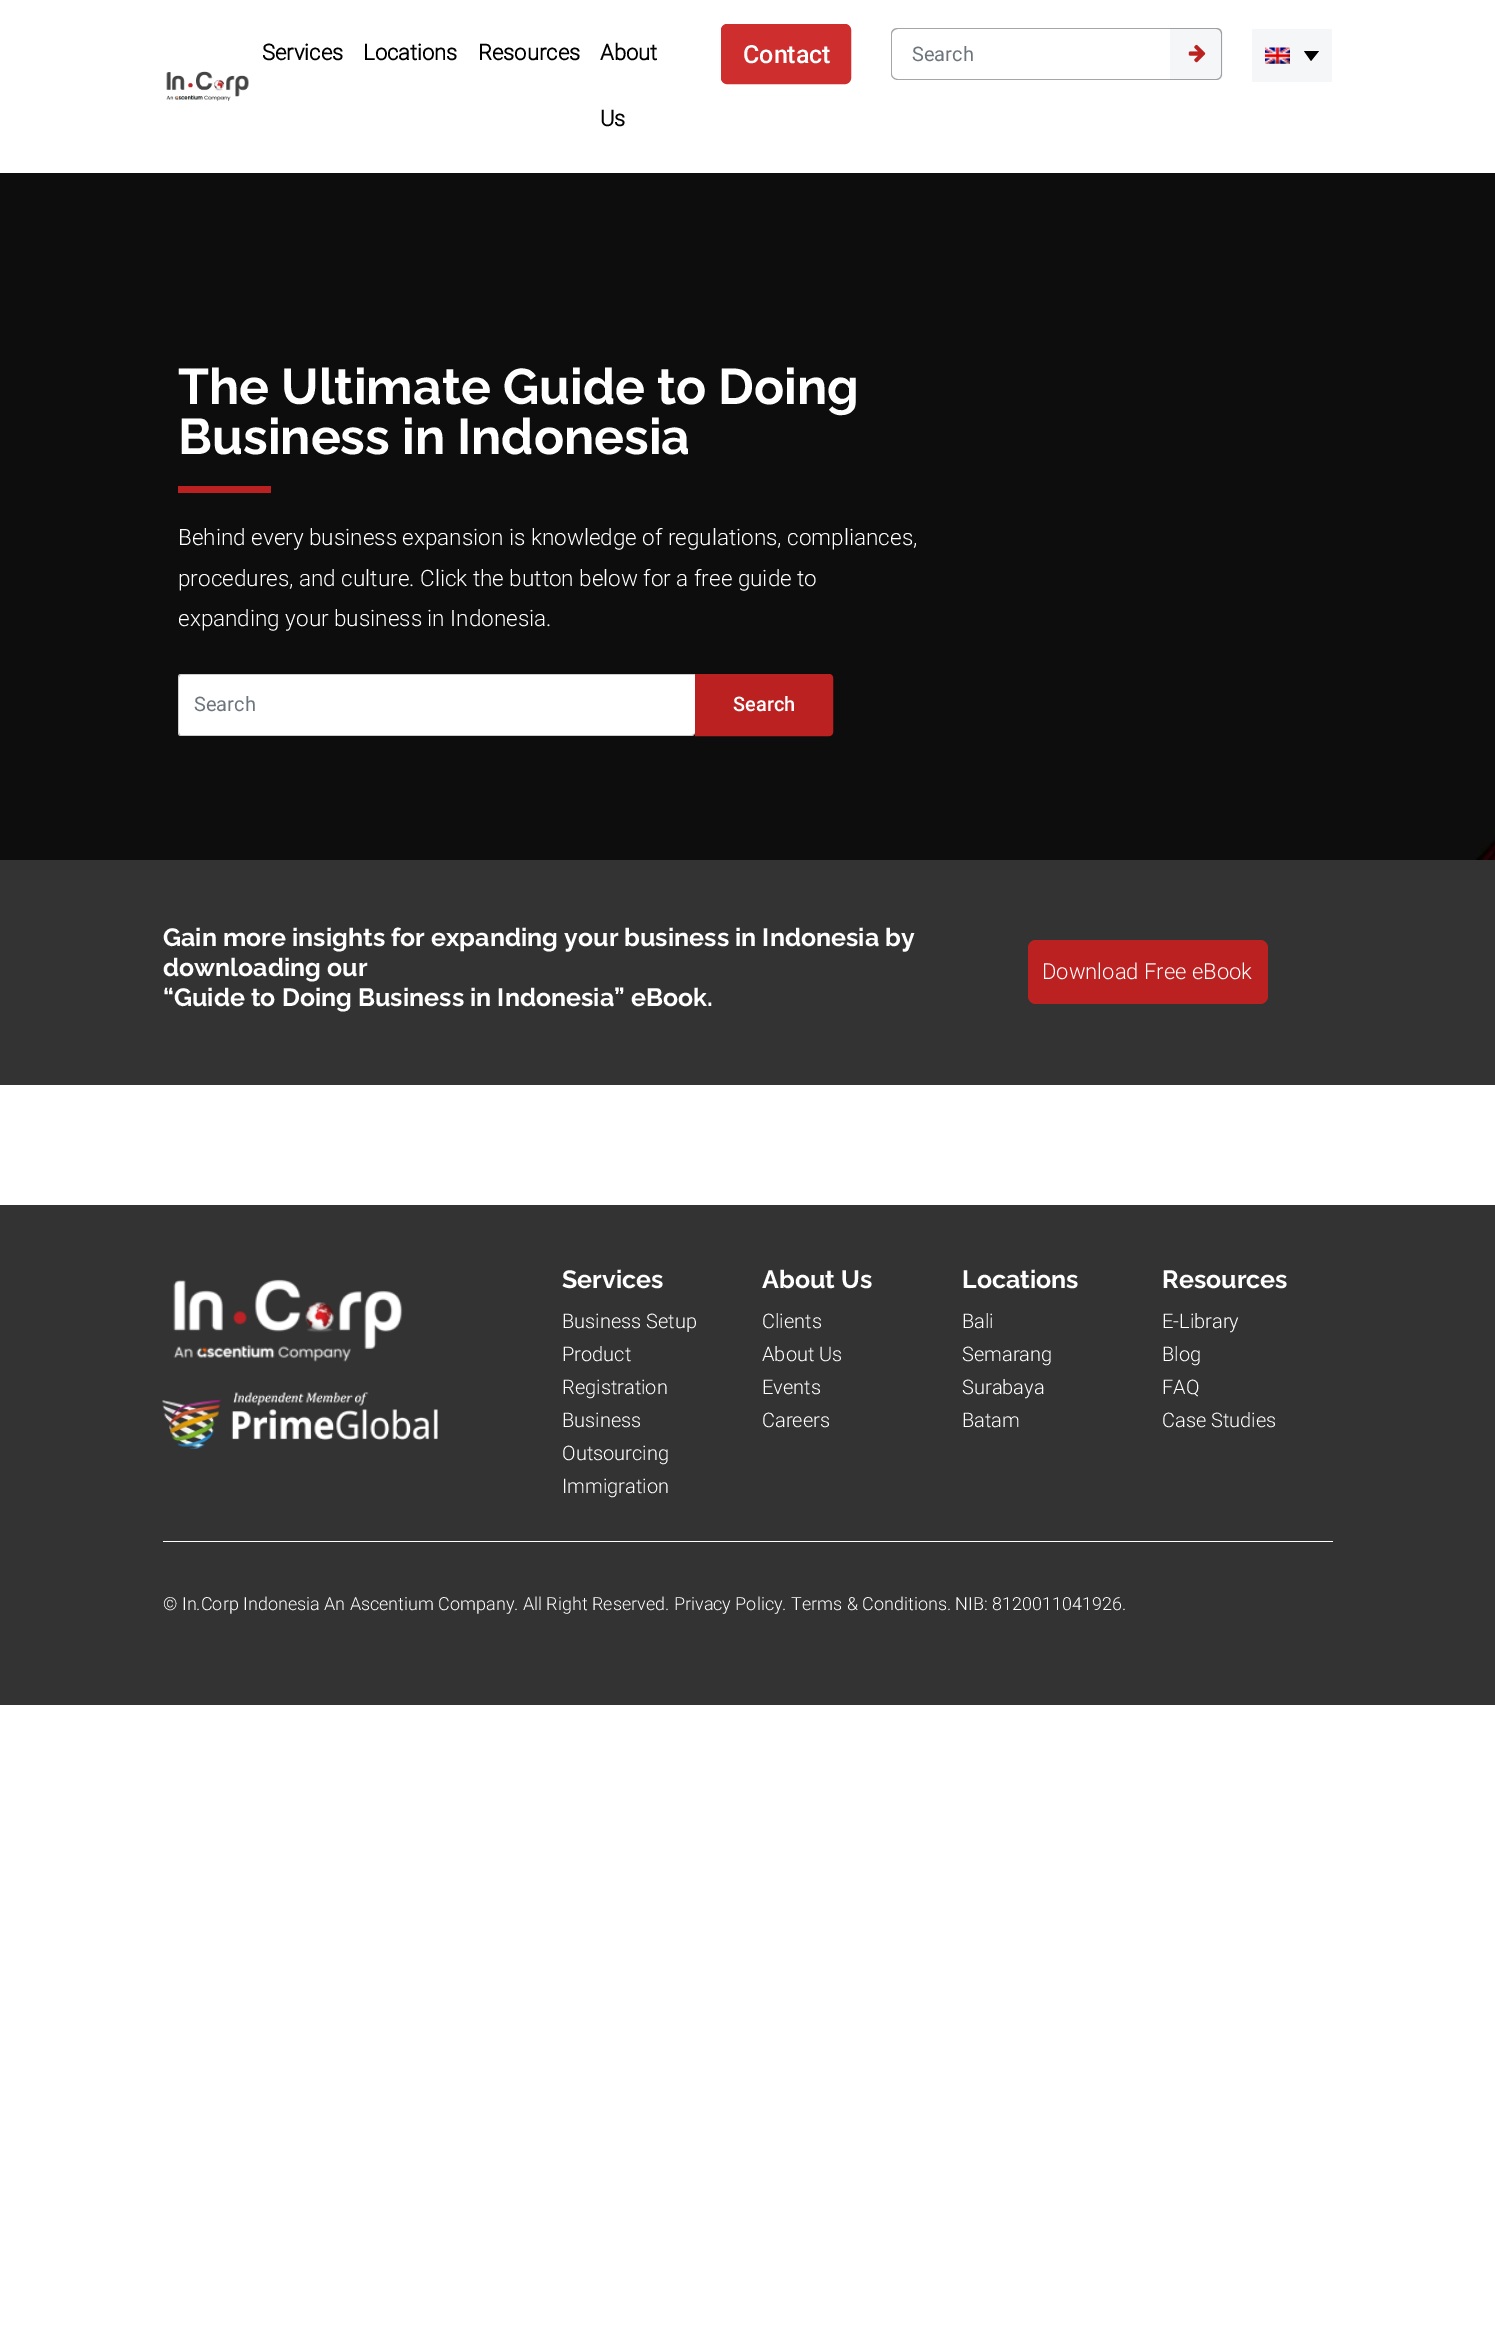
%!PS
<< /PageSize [1495 2336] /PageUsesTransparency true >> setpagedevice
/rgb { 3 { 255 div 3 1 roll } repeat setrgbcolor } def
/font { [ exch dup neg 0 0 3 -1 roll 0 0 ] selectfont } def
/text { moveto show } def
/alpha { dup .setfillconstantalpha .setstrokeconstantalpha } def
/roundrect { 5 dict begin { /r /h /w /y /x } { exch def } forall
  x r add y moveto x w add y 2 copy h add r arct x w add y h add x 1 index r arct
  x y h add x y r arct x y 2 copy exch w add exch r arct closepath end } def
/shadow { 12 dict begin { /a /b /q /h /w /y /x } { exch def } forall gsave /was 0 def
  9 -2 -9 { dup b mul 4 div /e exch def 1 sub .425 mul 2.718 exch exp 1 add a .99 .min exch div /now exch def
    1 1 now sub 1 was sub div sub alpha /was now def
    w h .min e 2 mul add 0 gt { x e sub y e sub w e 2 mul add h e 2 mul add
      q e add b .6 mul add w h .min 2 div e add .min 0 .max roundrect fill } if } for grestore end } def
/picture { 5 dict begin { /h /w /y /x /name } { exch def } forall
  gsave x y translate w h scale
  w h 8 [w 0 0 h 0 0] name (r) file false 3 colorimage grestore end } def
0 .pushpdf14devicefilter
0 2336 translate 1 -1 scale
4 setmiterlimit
255 255 255 rgb
0 0 1495 2336 rectfill
(img_04.rgb) 0 173 1495 687 picture
0 0 0 rgb
0 -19 1495 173 0 19 0.42 shadow
255 255 255 rgb
0 0 1495 173 rectfill
(img_01.rgb) 166 71 83 30 picture
207 46 46 rgb
721.5 24.5 129 59 5.5 roundrect gsave fill grestore
stroke
166 166 166 rgb
898 28 moveto 272 0 rlineto 0 52 rlineto -272 0 rlineto -4 0 -7 -3 -7 -6 rcurveto 0 -40 rlineto 0 -4 3 -6 7 -6 rcurveto closepath 898 29 moveto 272 0 rlineto 0 50 rlineto -272 0 rlineto -3 0 -6 -2 -6 -5 rcurveto 0 -40 rlineto 0 -3 3 -5 6 -5 rcurveto closepath eofill
244 246 248 rgb
1170 28 moveto 47 0 rlineto 3.5 0 6 2.5 6 6 rcurveto 0 40 rlineto 0 3.5 -2.5 6 -6 6 rcurveto -47 0 rlineto closepath fill
159 160 161 rgb
1170 28 moveto 46 0 rlineto 4 0 6 2 6 6 rcurveto 0 40 rlineto 0 3 -2 6 -6 6 rcurveto -46 0 rlineto closepath 1170 29 moveto 46 0 rlineto 3 0 5 2 5 5 rcurveto 0 40 rlineto 0 3 -2 5 -5 5 rcurveto -46 0 rlineto closepath eofill
(img_02.rgb) 1188 44 18 19 picture
244 246 248 rgb
1252 29 80 53 rectfill
(img_03.rgb) 1265 47 25 17 picture
0 0 0 rgb
1304 51 moveto 15 0 rlineto -8 10 rlineto closepath fill
187 33 33 rgb
178 486 93 7 rectfill
255 255 255 rgb
181 675 moveto 514 0 rlineto 0 57 rlineto 0 2 -2 3 -4 3 rcurveto -510 0 rlineto -1 0 -2 -1 -2 -3 rcurveto 0 -54 rlineto 0 -2 1 -3 2 -3 rcurveto closepath fill
204 204 204 rgb
181 674 moveto 514 0 rlineto 0 58 rlineto 0 3 -2 4 -4 4 rcurveto -510 0 rlineto -2 0 -3 -1 -3 -4 rcurveto 0 -54 rlineto 0 -3 1 -4 3 -4 rcurveto closepath 181 675 moveto 514 0 rlineto 0 57 rlineto 0 2 -2 3 -4 3 rcurveto -510 0 rlineto -1 0 -2 -1 -2 -3 rcurveto 0 -54 rlineto 0 -2 1 -3 2 -3 rcurveto closepath eofill
187 33 33 rgb
695.5 674.5 moveto 133.5 0 rlineto 2 0 3.5 1.5 3.5 3.5 rcurveto 0 54 rlineto 0 2 -1.5 3.5 -3.5 3.5 rcurveto -133.5 0 rlineto closepath gsave fill grestore
stroke
51 51 51 rgb
0 860 1495 225 rectfill
187 33 33 rgb
1028 940 240 64 8 roundrect fill
51 51 51 rgb
0 1205 1495 500 rectfill
(img_05.rgb) 173 1279 230 83 picture
(img_06.rgb) 162 1392 276 57 picture
255 255 255 rgb
163 1541 1170 1 rectfill
/Roboto-Bold 22 font
0 0 0 rgb
(Services) 262 60 text
(Locations) 363 60 text
(Resources) 478 60 text
(About) 600 60 text
(Us) 600 126 text
/Roboto-Medium 25 font
255 255 255 rgb
(Contact) 743 63 text
/Roboto-Regular 20 font
108 117 125 rgb
(Search) 912 61 text
/Raleway-Bold 50 font
255 255 255 rgb
(The Ultimate Guide to Doing) 178 404 text
(Business in Indonesia) 178 454 text
/Roboto-Light 22.5 font
(Behind every business expansion is knowledge of regulations, compliances,) 178 545 text
(procedures, and culture. Click the button below for a free guide to) 178 586 text
(expanding your business in Indonesia.) 178 626 text
/Roboto-Regular 20 font
108 117 125 rgb
(Search) 194 711 text
/Roboto-Medium 20 font
255 255 255 rgb
(Search) 733 711 text
/Raleway-Bold 25 font
(Gain more insights for expanding your business in Indonesia by) 163 946 text
(downloading our) 163 976 text
(“Guide to Doing Business in Indonesia” eBook.) 163 1006 text
/Roboto-Light 22 font
(Download Free eBook) 1042 979 text
/Raleway-Bold 25 font
(Services) 562 1288 text
/Roboto-Light 20 font
(Business Setup) 562 1328 text
(Product) 562 1361 text
(Registration) 562 1394 text
(Business) 562 1427 text
(Outsourcing) 562 1460 text
(Immigration) 562 1493 text
/Raleway-Bold 25 font
(About Us) 762 1288 text
/Roboto-Light 20 font
(Clients) 762 1328 text
(About Us) 762 1361 text
(Events) 762 1394 text
(Careers) 762 1427 text
/Raleway-Bold 25 font
(Locations) 962 1288 text
/Roboto-Light 20 font
(Bali) 962 1328 text
(Semarang) 962 1361 text
(Surabaya) 962 1394 text
(Batam) 962 1427 text
/Raleway-Bold 25 font
(Resources) 1162 1288 text
/Roboto-Light 20 font
(E-Library) 1162 1328 text
(Blog) 1162 1361 text
(FAQ) 1162 1394 text
(Case Studies) 1162 1427 text
/Roboto-Light 18 font
(© In.Corp Indonesia An Ascentium Company. All Right Reserved. Privacy Policy. Terms & Conditions. NIB: 8120011041926.) 163 1610 text
.poppdf14devicefilter showpage
